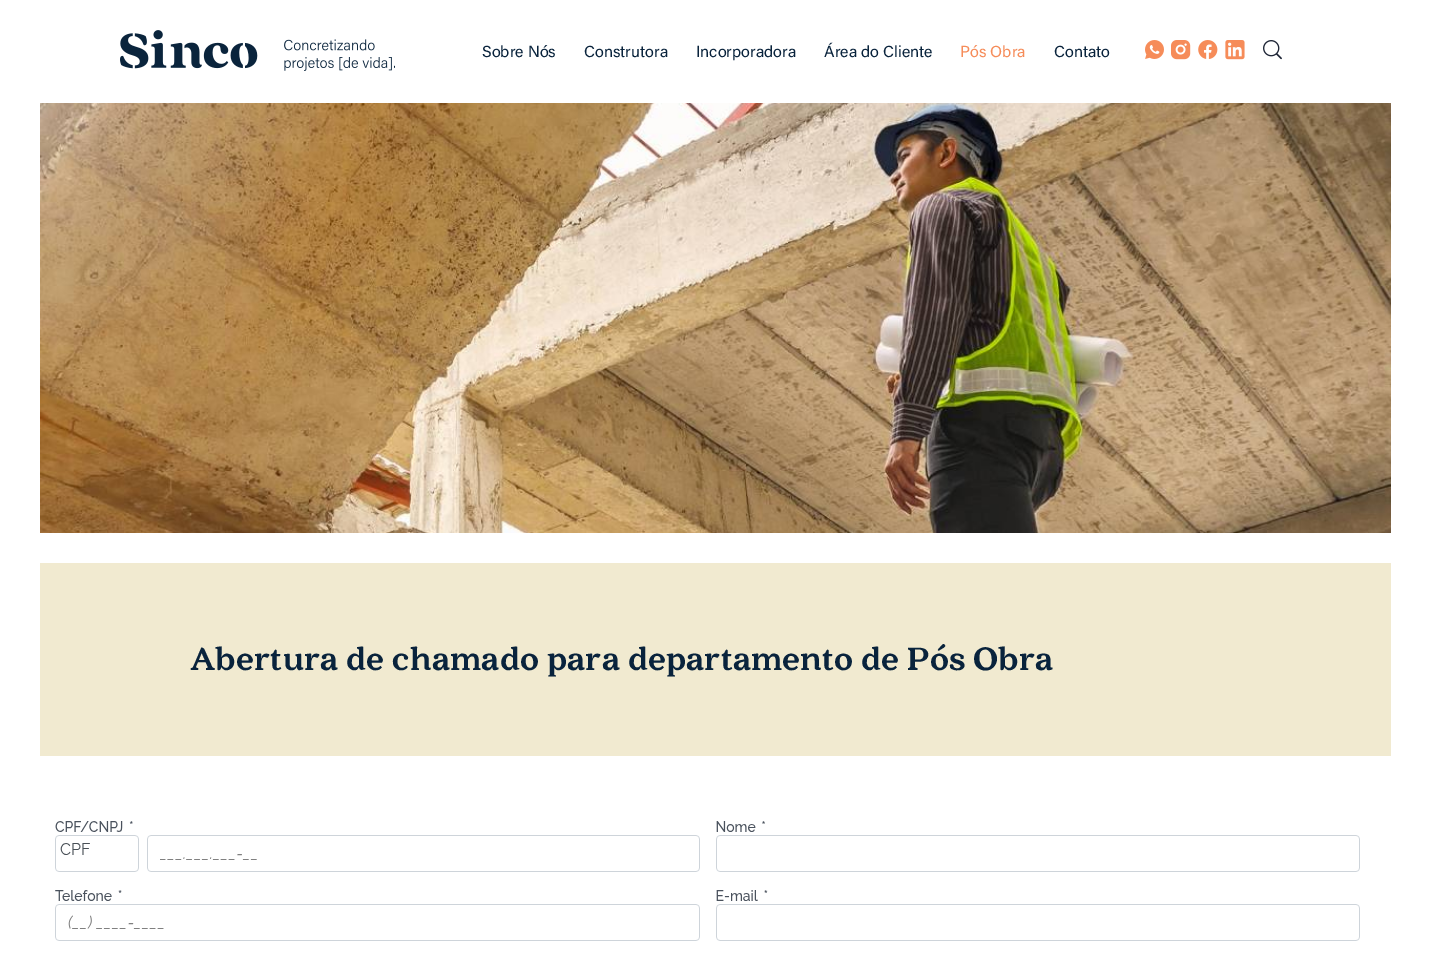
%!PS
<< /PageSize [1431 954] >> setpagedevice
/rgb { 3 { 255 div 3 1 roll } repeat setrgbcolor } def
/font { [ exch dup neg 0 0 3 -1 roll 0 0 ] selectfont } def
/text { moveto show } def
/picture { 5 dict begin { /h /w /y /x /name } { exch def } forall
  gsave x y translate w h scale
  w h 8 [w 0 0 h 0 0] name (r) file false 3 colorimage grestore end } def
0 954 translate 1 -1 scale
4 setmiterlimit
255 255 255 rgb
0 0 1431 954 rectfill
(img_01.rgb) 120 30 275 41 picture
(img_02.rgb) 1145 40 19 19 picture
(img_03.rgb) 1171 40 20 20 picture
(img_04.rgb) 1198 40 20 19 picture
(img_05.rgb) 1225 40 20 20 picture
(img_06.rgb) 1263 40 19 20 picture
(img_07.rgb) 40 103 1351 430 picture
241 234 208 rgb
40 563 1351 193 rectfill
(img_08.rgb) 55 821 1305 120 picture
/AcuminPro-Regular 16 font
9 35 60 rgb
(Sobre Nós) 482 57 text
(Construtora) 584 57 text
(Incorporadora) 696 57 text
(Área do Cliente) 824 57 text
246 140 89 rgb
(Pós Obra) 960 57 text
9 35 60 rgb
(Contato) 1054 57 text
/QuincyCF-Black 36 font
(Abertura de chamado para departamento de Pós Obra) 190 670 text
showpage
